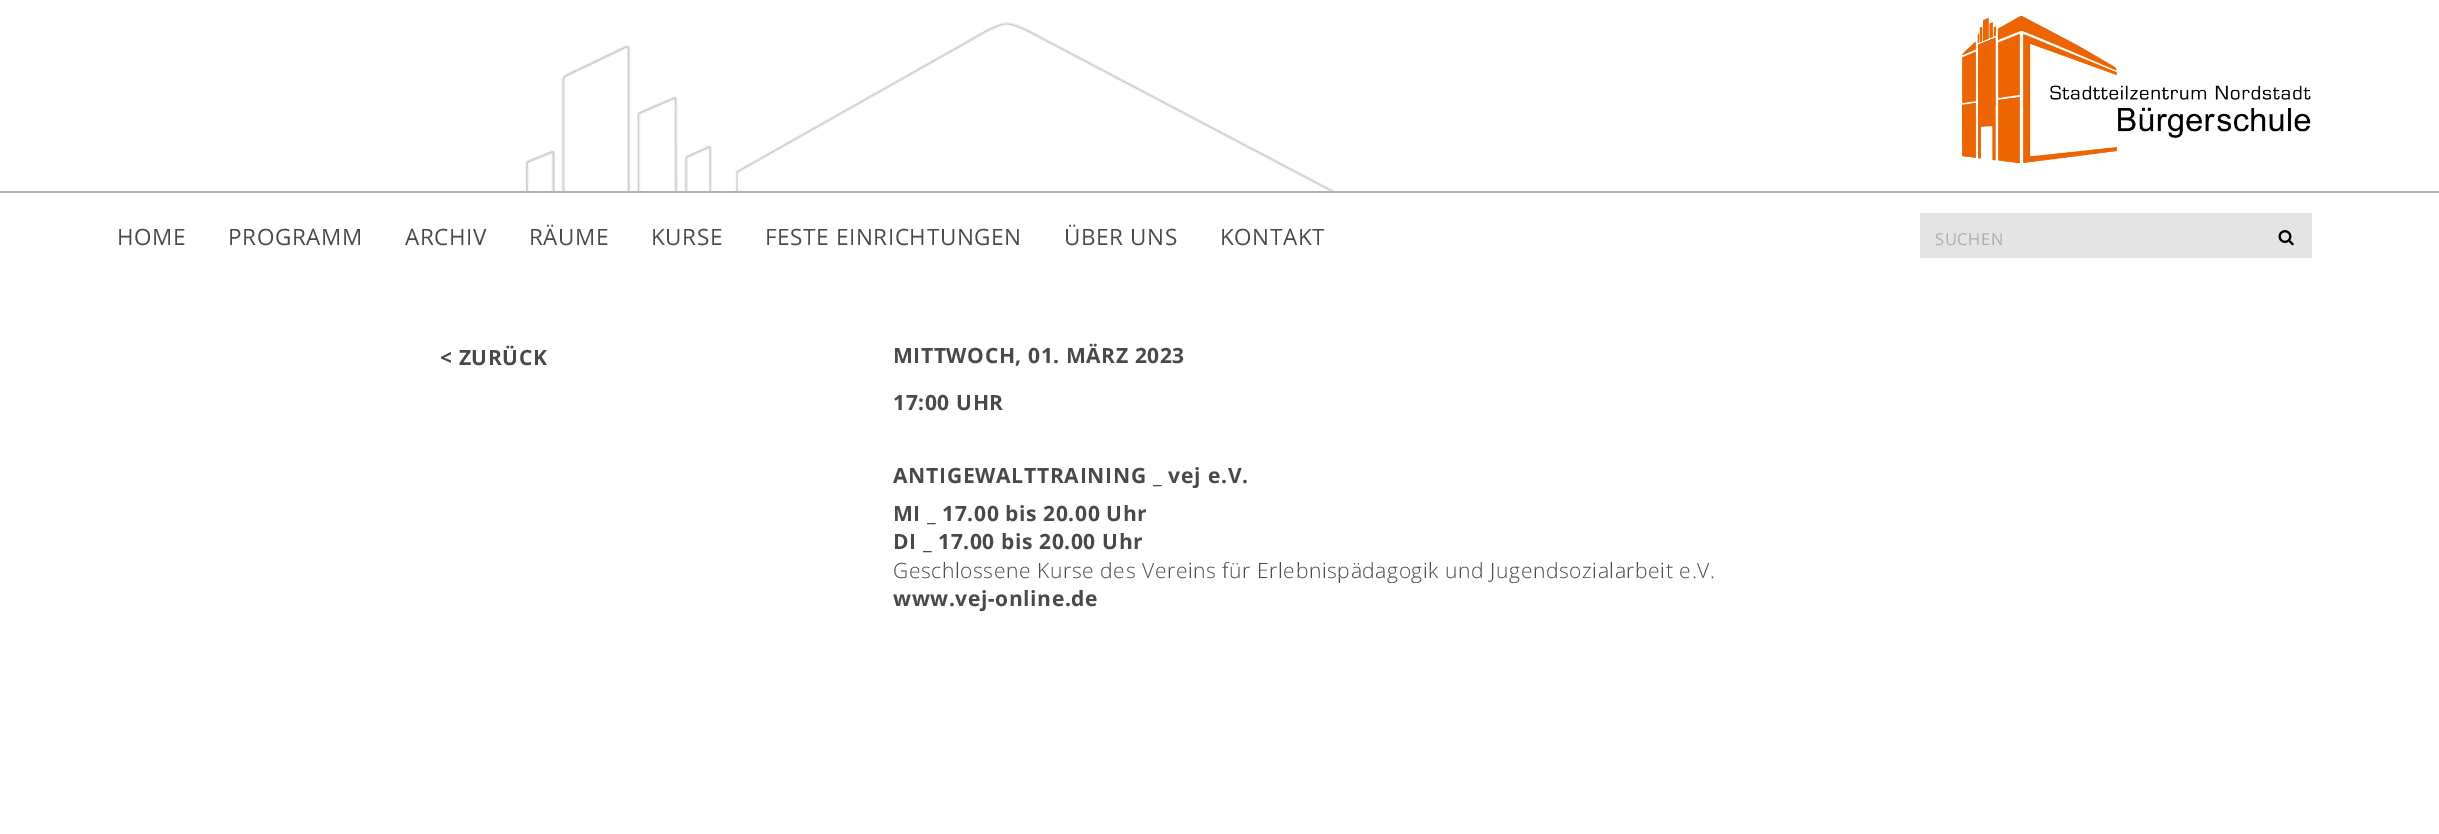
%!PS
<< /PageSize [2439 834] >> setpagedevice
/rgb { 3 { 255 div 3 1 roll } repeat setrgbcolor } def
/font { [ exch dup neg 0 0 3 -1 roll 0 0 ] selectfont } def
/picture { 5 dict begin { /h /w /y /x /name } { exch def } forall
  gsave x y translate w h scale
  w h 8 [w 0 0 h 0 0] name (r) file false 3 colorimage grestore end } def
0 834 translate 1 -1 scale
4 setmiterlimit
255 255 255 rgb
0 0 2439 834 rectfill
(img_01.rgb) 500 22 1004 169 picture
(img_02.rgb) 1962 15 349 149 picture
177 177 177 rgb
0 191 2439 2 rectfill
229 228 228 rgb
1920 213 392 45 rectfill
(img_03.rgb) 2278 230 16 16 picture
/OpenSans-Regular 22.5 font
73 73 71 rgb
117 245 moveto 0.6 0 (HOME) ashow
228 245 moveto 0.6 0 (PROGRAMM) ashow
405 245 moveto 0.6 0 (ARCHIV) ashow
529 245 moveto 0.6 0 (RÄUME) ashow
651 245 moveto 0.6 0 (KURSE) ashow
765 245 moveto 0.6 0 (FESTE EINRICHTUNGEN) ashow
1064 245 moveto 0.6 0 (ÜBER UNS) ashow
1220 245 moveto 0.6 0 (KONTAKT) ashow
/OpenSans-Regular 16.5 font
176 175 175 rgb
1935 245 moveto 0.6 0 (SUCHEN) ashow
/OpenSans-Bold 21 font
73 73 71 rgb
440 365 moveto 0.6 0 (< ZURÜCK) ashow
893 363 moveto 0.6 0 (MITTWOCH, 01. MÄRZ 2023) ashow
893 410 moveto 0.6 0 (17:00 UHR) ashow
893 483 moveto 0.75 0 (ANTIGEWALTTRAINING _ vej e.V.) ashow
893 521 moveto 0.6 0 (MI _ 17.00 bis 20.00 Uhr) ashow
893 549 moveto 0.6 0 (DI _ 17.00 bis 20.00 Uhr) ashow
/OpenSans-Light 21 font
893 578 moveto 0.6 0 (Geschlossene Kurse des Vereins für Erlebnispädagogik und Jugendsozialarbeit e.V.) ashow
/OpenSans-Bold 21 font
893 606 moveto 0.6 0 (www.vej-online.de) ashow
showpage
